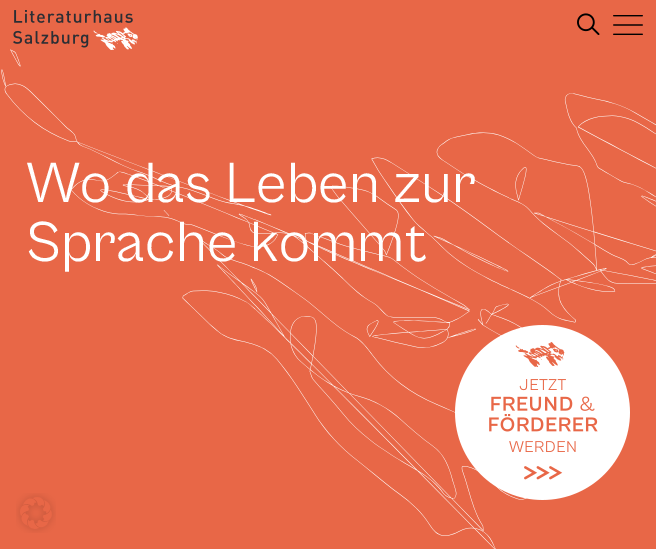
%!PS
<< /PageSize [656 549] >> setpagedevice
/rgb { 3 { 255 div 3 1 roll } repeat setrgbcolor } def
/font { [ exch dup neg 0 0 3 -1 roll 0 0 ] selectfont } def
/text { moveto show } def
/picture { 5 dict begin { /h /w /y /x /name } { exch def } forall
  gsave x y translate w h scale
  w h 8 [w 0 0 h 0 0] name (r) file false 3 colorimage grestore end } def
0 549 translate 1 -1 scale
4 setmiterlimit
232 103 71 rgb
0 0 656 549 rectfill
(img_04.rgb) 1 49 655 500 picture
(img_01.rgb) 13 10 125 40 picture
(img_02.rgb) 577 13 23 22 picture
(img_03.rgb) 613 15 30 20 picture
(img_05.rgb) 455 325 175 175 picture
(img_06.rgb) 16 493 40 40 picture
/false-Regular 58.5 font
255 255 255 rgb
(Wo das Leben zur) 26 202 text
(Sprache kommt) 26 261 text
showpage
